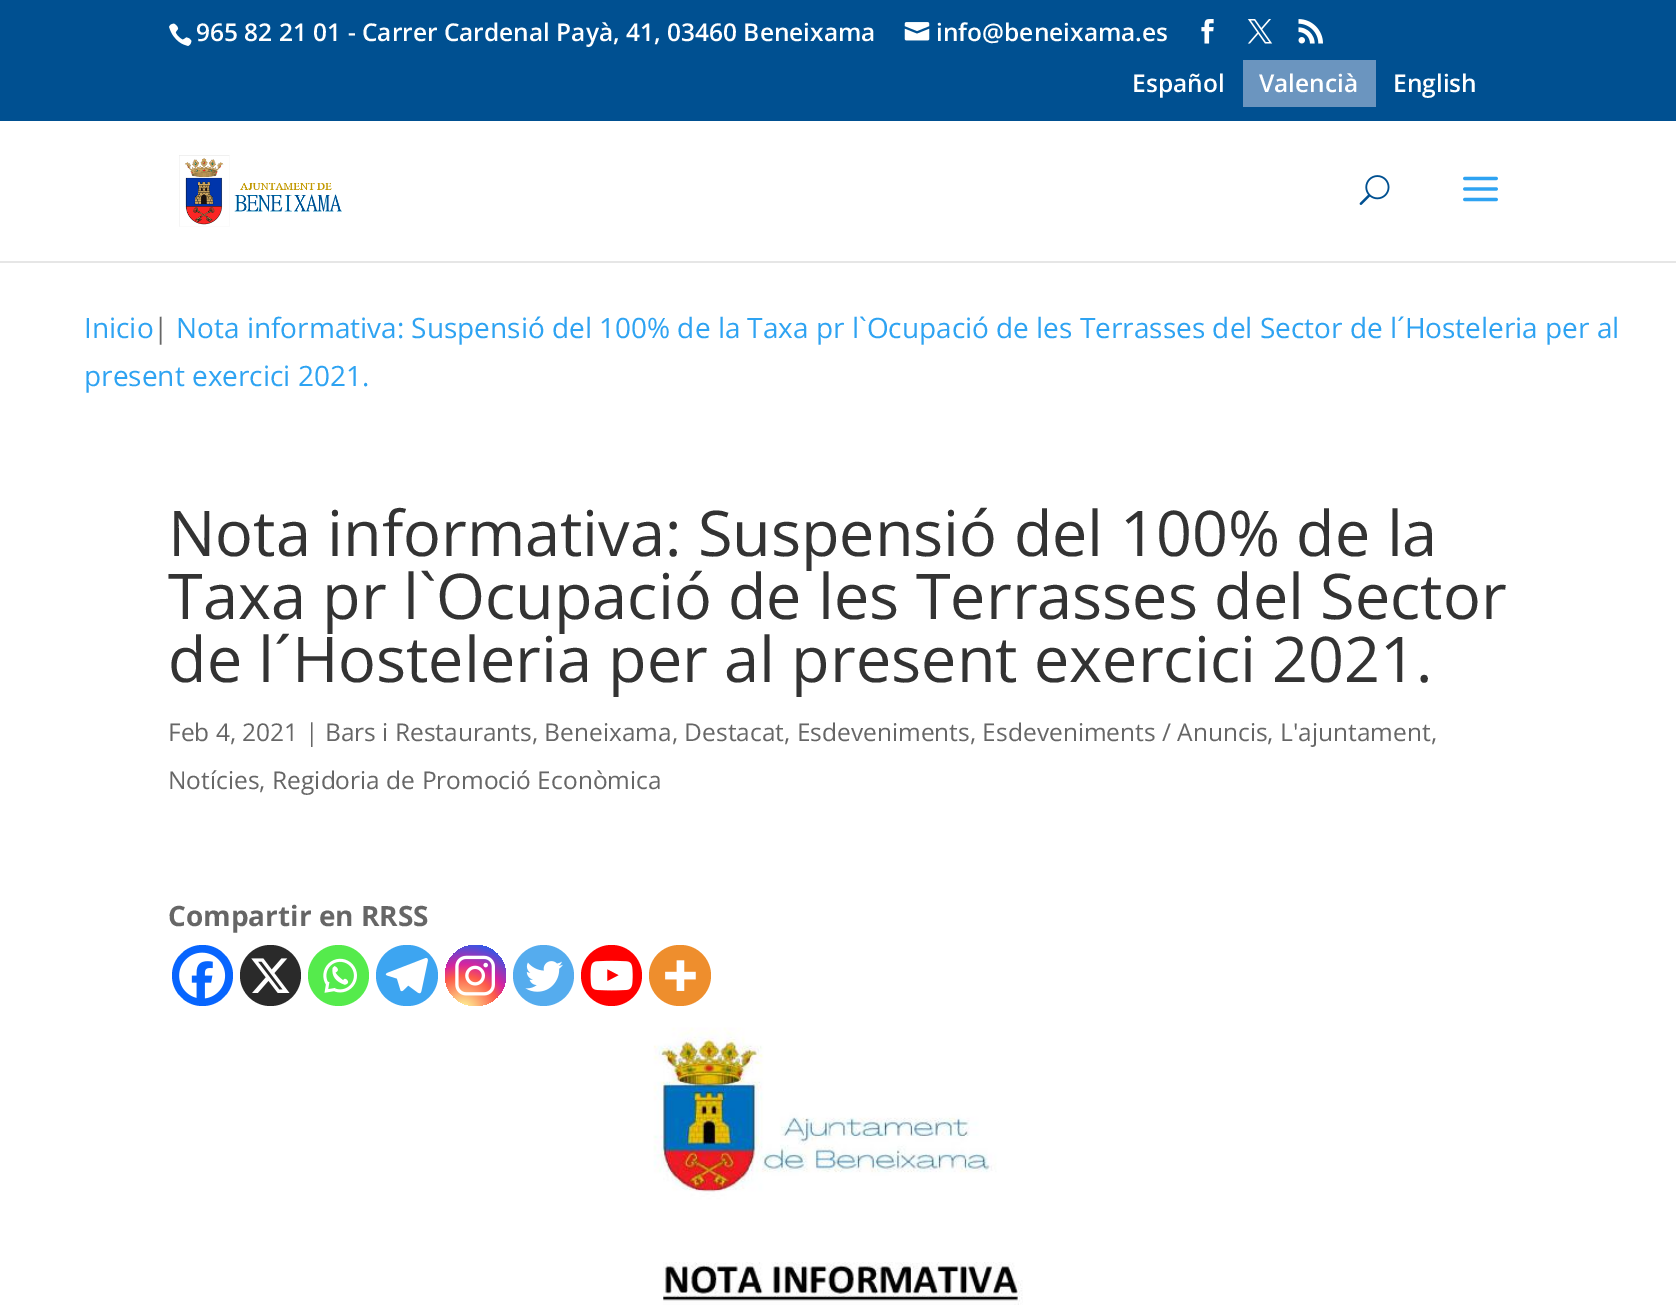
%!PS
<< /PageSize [1676 1305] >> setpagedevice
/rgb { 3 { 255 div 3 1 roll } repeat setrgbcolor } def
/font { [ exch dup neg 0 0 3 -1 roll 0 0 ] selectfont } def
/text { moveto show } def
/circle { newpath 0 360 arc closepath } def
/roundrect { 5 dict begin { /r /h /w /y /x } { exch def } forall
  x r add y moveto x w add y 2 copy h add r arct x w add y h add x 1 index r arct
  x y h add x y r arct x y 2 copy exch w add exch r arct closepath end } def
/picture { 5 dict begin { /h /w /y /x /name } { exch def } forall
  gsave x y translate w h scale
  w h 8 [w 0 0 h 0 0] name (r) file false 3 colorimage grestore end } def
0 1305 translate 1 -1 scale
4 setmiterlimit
255 255 255 rgb
0 0 1676 1305 rectfill
0 80 145 rgb
0 0 1676 121 rectfill
(img_01.rgb) 169 23 23 23 picture
(img_02.rgb) 904 22 26 19 picture
(img_03.rgb) 1201 19 13 25 picture
(img_04.rgb) 1247 19 26 25 picture
(img_05.rgb) 1298 19 25 25 picture
107 149 191 rgb
1243 60 133 47 rectfill
230 230 230 rgb
0 261 moveto 0 2 rlineto 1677 0 rlineto 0 -140 rlineto -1 0 rlineto 0 138 rlineto closepath fill
(img_06.rgb) 179 155 163 72 picture
(img_07.rgb) 1359 175 31 30 picture
(img_08.rgb) 1463 176 35 26 picture
7 101 254 rgb
202.5 975.5 30.5 circle fill
(img_09.rgb) 179 952 47 47 picture
42 42 42 rgb
270.5 975.5 30.5 circle fill
(img_10.rgb) 251 958 39 35 picture
85 235 76 rgb
338.5 975.5 30.5 circle fill
(img_11.rgb) 323 958 34 35 picture
61 165 241 rgb
376 945 62 61 30.5 roundrect fill
(img_12.rgb) 385 958 43 36 picture
gsave 475.5 975.5 30.5 circle clip newpath 463 1011 translate 78 78 scale
<< /ShadingType 3 /ColorSpace /DeviceRGB /Coords [0 0 0 0 0 1] /Extend [true true] /Function << /FunctionType 3 /Domain [0 1] /Functions [<< /FunctionType 2 /Domain [0 1] /C0 [0.992 0.957 0.592] /C1 [0.992 0.957 0.592] /N 1 >> << /FunctionType 2 /Domain [0 1] /C0 [0.992 0.957 0.592] /C1 [0.992 0.349 0.286] /N 1 >> << /FunctionType 2 /Domain [0 1] /C0 [0.992 0.349 0.286] /C1 [0.839 0.141 0.624] /N 1 >> << /FunctionType 2 /Domain [0 1] /C0 [0.839 0.141 0.624] /C1 [0.157 0.353 0.922] /N 1 >> << /FunctionType 2 /Domain [0 1] /C0 [0.157 0.353 0.922] /C1 [0.157 0.353 0.922] /N 1 >>] /Bounds [0.05 0.45 0.6 0.9] /Encode [0 1 0 1 0 1 0 1 0 1] >> >> shfill grestore
(img_13.rgb) 455 955 40 41 picture
85 172 238 rgb
543.5 975.5 30.5 circle fill
(img_14.rgb) 525 961 38 31 picture
255 0 0 rgb
611.5 975.5 30.5 circle fill
(img_15.rgb) 590 960 43 31 picture
238 142 45 rgb
649 945 62 61 30.5 roundrect fill
(img_16.rgb) 665 960 31 31 picture
(img_17.rgb) 653 1027 370 278 picture
/OpenSans-SemiBold 24.5 font
255 255 255 rgb
(965 82 21 01 - Carrer Cardenal Payà, 41, 03460 Beneixama) 196 41 text
(info@beneixama.es) 936 41 text
(Español) 1132 92 text
(Valencià) 1259 92 text
(English) 1393 92 text
/OpenSans-Regular 28 font
46 163 242 rgb
(Inicio) 84 338 text
102 102 102 rgb
(|) 153 338 text
46 163 242 rgb
(Nota informativa: Suspensió del 100% de la Taxa pr l`Ocupació de les Terrasses del Sector de l´Hosteleria per al) 176 338 text
(present exercici 2021.) 84 386 text
/OpenSans-Regular 63 font
51 51 51 rgb
(Nota informativa: Suspensió del 100% de la) 168 556 text
(Taxa pr l`Ocupació de les Terrasses del Sector) 168 619 text
(de l´Hosteleria per al present exercici 2021.) 168 682 text
/OpenSans-Regular 24.5 font
102 102 102 rgb
(Feb 4, 2021 | Bars i Restaurants, Beneixama, Destacat, Esdeveniments, Esdeveniments / Anuncis, L'ajuntament,) 168 741 text
(Notícies, Regidoria de Promoció Econòmica) 168 789 text
/OpenSans-Bold 28 font
(Compartir en RRSS) 168 926 text
showpage
